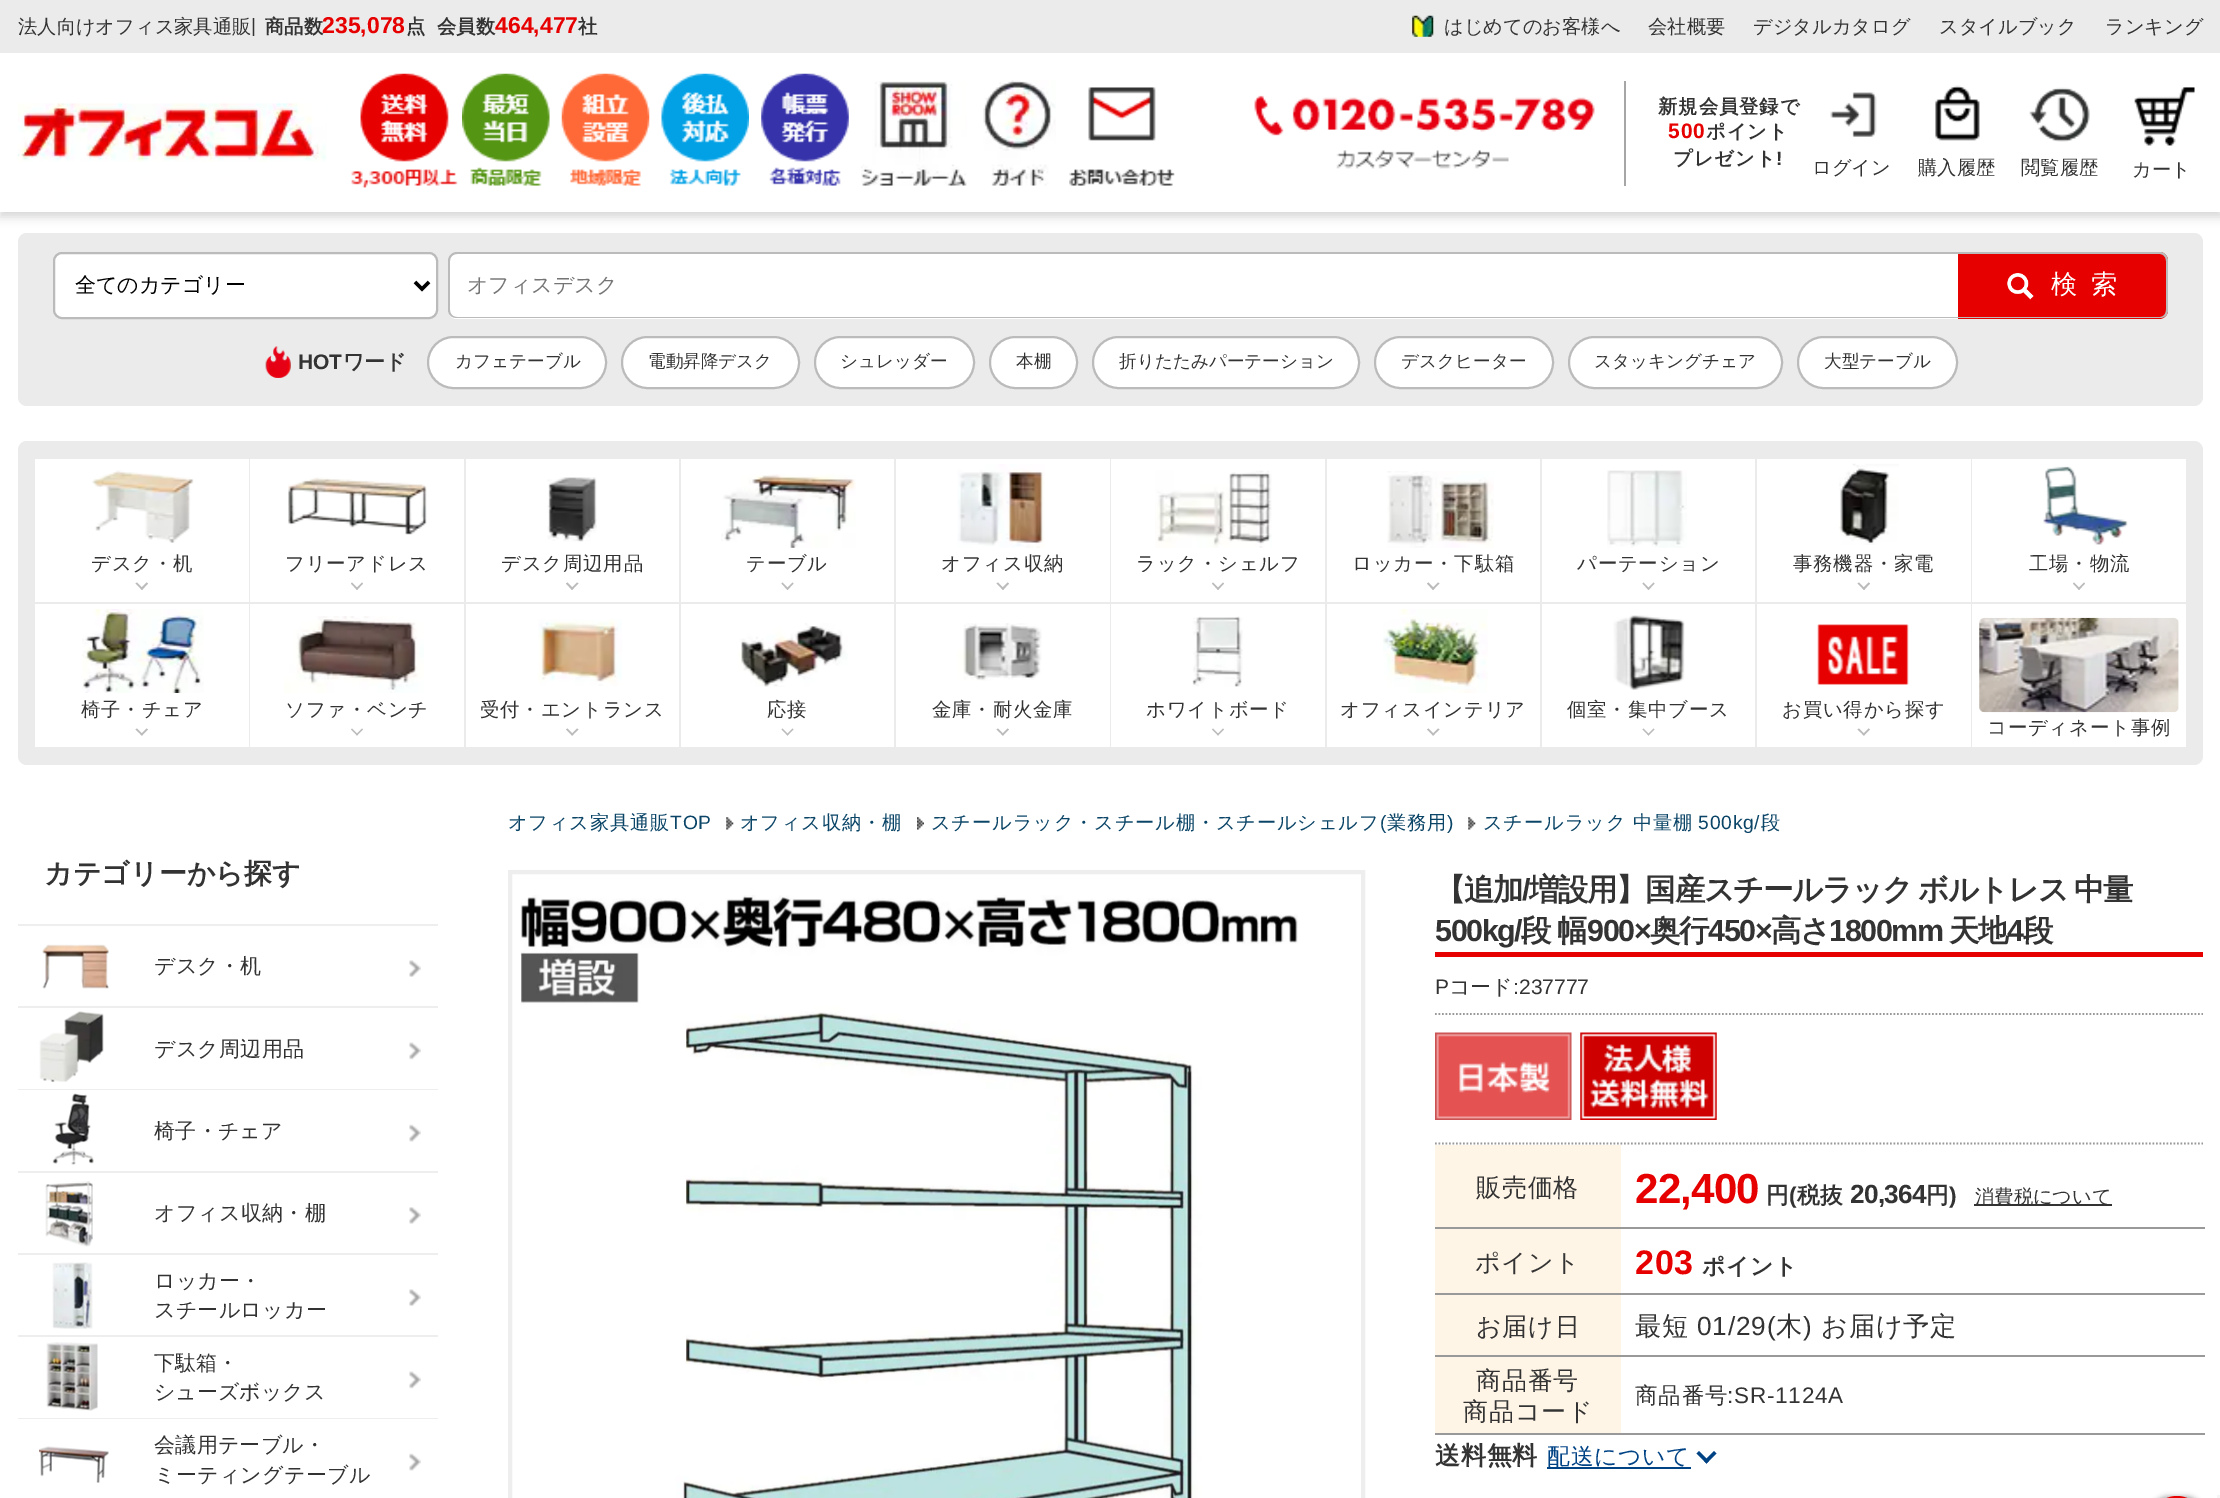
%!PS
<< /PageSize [2220 1498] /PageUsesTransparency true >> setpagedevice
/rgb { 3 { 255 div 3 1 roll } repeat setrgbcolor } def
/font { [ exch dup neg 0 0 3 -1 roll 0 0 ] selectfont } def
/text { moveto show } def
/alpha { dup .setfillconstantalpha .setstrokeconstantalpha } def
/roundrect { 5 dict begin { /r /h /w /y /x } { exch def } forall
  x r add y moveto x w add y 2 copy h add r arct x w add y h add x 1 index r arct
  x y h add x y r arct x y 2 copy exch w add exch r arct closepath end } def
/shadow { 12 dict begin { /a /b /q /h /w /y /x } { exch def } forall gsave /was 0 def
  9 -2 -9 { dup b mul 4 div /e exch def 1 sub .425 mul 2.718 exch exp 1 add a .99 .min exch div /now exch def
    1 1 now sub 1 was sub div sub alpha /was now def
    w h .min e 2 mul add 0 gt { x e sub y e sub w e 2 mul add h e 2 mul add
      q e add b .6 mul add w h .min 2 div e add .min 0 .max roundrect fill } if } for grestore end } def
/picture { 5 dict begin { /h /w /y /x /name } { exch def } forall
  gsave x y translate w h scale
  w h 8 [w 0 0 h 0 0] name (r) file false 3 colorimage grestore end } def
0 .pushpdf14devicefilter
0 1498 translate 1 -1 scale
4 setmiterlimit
255 255 255 rgb
0 0 2220 1498 rectfill
gsave
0 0 moveto 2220 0 rlineto 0 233 rlineto -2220 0 rlineto closepath 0 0 moveto 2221 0 rlineto 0 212 rlineto -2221 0 rlineto closepath eoclip newpath
0 0 0 rgb
0 5 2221 212 0 5 0.16 shadow
grestore
235 235 235 rgb
0 0 2220 53 rectfill
(img_01.rgb) 1412 15 22 22 picture
(img_02.rgb) 17 103 310 59 picture
(img_03.rgb) 351 73 107 115 picture
(img_04.rgb) 462 73 88 113 picture
(img_05.rgb) 561 73 89 113 picture
(img_06.rgb) 661 73 88 113 picture
(img_07.rgb) 761 73 88 113 picture
(img_08.rgb) 861 81 106 105 picture
(img_09.rgb) 983 80 73 106 picture
(img_10.rgb) 1069 87 106 99 picture
166 166 166 rgb
1624 81 2 105 rectfill
(img_11.rgb) 1254 95 341 74 picture
(img_12.rgb) 1830 92 47 45 picture
(img_13.rgb) 1935 85 45 56 picture
(img_14.rgb) 2029 87 61 55 picture
(img_15.rgb) 2134 87 61 59 picture
235 235 235 rgb
18 233 2185 173 9 roundrect fill
255 255 255 rgb
54 253 383 65 8 roundrect gsave fill grestore
187 187 187 rgb
2 setlinewidth
stroke
0 0 0 rgb
3.5 setlinewidth
415 282 moveto 7 7 rlineto 7 -7 rlineto stroke
255 255 255 rgb
448 252 1720 67 9 roundrect fill
187 187 187 rgb
457 252 moveto 1703 0 rlineto 4 0 8 4 8 9 rcurveto 0 49 rlineto 0 5 -4 8 -8 8 rcurveto -1703 0 rlineto -5 0 -9 -3 -9 -8 rcurveto 0 -49 rlineto 0 -5 4 -9 9 -9 rcurveto closepath 457 254 moveto 1703 0 rlineto 4 0 8 3 8 7 rcurveto 0 49 rlineto 0 4 -4 7 -8 7 rcurveto -1703 0 rlineto -4 0 -7 -3 -7 -7 rcurveto 0 -49 rlineto 0 -4 3 -7 7 -7 rcurveto closepath eofill
230 0 0 rgb
1958 252 moveto 201 0 rlineto 5 0 9 4 9 9 rcurveto 0 49 rlineto 0 5 -4 9 -9 9 rcurveto -201 0 rlineto closepath fill
(img_16.rgb) 2007 273 27 27 picture
187 187 187 rgb
1958 252 moveto 202 0 rlineto 4 0 8 4 8 9 rcurveto 0 49 rlineto 0 5 -4 8 -8 8 rcurveto -202 0 rlineto closepath 1958 254 moveto 202 0 rlineto 3 0 6 3 6 7 rcurveto 0 49 rlineto 0 4 -3 7 -6 7 rcurveto -202 0 rlineto closepath eofill
(img_17.rgb) 265 346 26 32 picture
255 255 255 rgb
428 337 178 51 25.5 roundrect gsave fill grestore
187 187 187 rgb
2 setlinewidth
stroke
255 255 255 rgb
622 337 177 51 25.5 roundrect gsave fill grestore
187 187 187 rgb
stroke
255 255 255 rgb
815 337 159 51 25.5 roundrect gsave fill grestore
187 187 187 rgb
stroke
255 255 255 rgb
990 337 87 51 25.5 roundrect gsave fill grestore
187 187 187 rgb
stroke
255 255 255 rgb
1093 337 266 51 25.5 roundrect gsave fill grestore
187 187 187 rgb
stroke
255 255 255 rgb
1375 337 178 51 25.5 roundrect gsave fill grestore
187 187 187 rgb
stroke
255 255 255 rgb
1569 337 213 51 25.5 roundrect gsave fill grestore
187 187 187 rgb
stroke
255 255 255 rgb
1798 337 159 51 25.5 roundrect gsave fill grestore
187 187 187 rgb
stroke
235 235 235 rgb
18 441 2185 324 9 roundrect fill
255 255 255 rgb
35 459 214 143 rectfill
(img_18.rgb) 92 470 102 73 picture
187 187 187 rgb
146.5 582.5 moveto 1.5 1 rlineto -6 6.5 rlineto -1.5 -1.5 rlineto closepath fill
137 582.5 moveto 6 6 rlineto -1 1.5 rlineto -6.5 -6.5 rlineto closepath fill
255 255 255 rgb
250 459 214 143 rectfill
(img_19.rgb) 288 477 139 58 picture
187 187 187 rgb
362 582.5 moveto 1 1 rlineto -6 6.5 rlineto -1 -1.5 rlineto closepath fill
352 582.5 moveto 6 6 rlineto -1 1.5 rlineto -6 -6.5 rlineto closepath fill
255 255 255 rgb
466 459 213 143 rectfill
(img_20.rgb) 547 477 50 65 picture
187 187 187 rgb
577 582.5 moveto 1.5 1 rlineto -6.5 6.5 rlineto -1 -1.5 rlineto closepath fill
567.5 582.5 moveto 6 6 rlineto -1.5 1.5 rlineto -6 -6.5 rlineto closepath fill
255 255 255 rgb
681 459 213 143 rectfill
(img_21.rgb) 721 474 135 74 picture
187 187 187 rgb
792.5 582.5 moveto 1 1 rlineto -6 6.5 rlineto -1 -1.5 rlineto closepath fill
782.5 582.5 moveto 6 6 rlineto -1 1.5 rlineto -6 -6.5 rlineto closepath fill
255 255 255 rgb
896 459 214 143 rectfill
(img_22.rgb) 957 464 88 84 picture
187 187 187 rgb
1007.5 582.5 moveto 1.5 1 rlineto -6 6.5 rlineto -1.5 -1.5 rlineto closepath fill
998 582.5 moveto 6 6 rlineto -1 1.5 rlineto -6.5 -6.5 rlineto closepath fill
255 255 255 rgb
1111 459 214 143 rectfill
(img_23.rgb) 1155 470 117 78 picture
187 187 187 rgb
1223 582.5 moveto 1 1 rlineto -6 6.5 rlineto -1 -1.5 rlineto closepath fill
1213 582.5 moveto 6 6 rlineto -1 1.5 rlineto -6 -6.5 rlineto closepath fill
255 255 255 rgb
1327 459 213 143 rectfill
(img_24.rgb) 1387 471 107 77 picture
187 187 187 rgb
1438 582.5 moveto 1.5 1 rlineto -6.5 6.5 rlineto -1 -1.5 rlineto closepath fill
1428.5 582.5 moveto 6 6 rlineto -1.5 1.5 rlineto -6 -6.5 rlineto closepath fill
255 255 255 rgb
1542 459 213 143 rectfill
(img_25.rgb) 1607 470 80 78 picture
187 187 187 rgb
1653.5 582.5 moveto 1 1 rlineto -6 6.5 rlineto -1 -1.5 rlineto closepath fill
1643.5 582.5 moveto 6 6 rlineto -1 1.5 rlineto -6 -6.5 rlineto closepath fill
255 255 255 rgb
1757 459 214 143 rectfill
(img_26.rgb) 1839 463 60 82 picture
187 187 187 rgb
1868.5 582.5 moveto 1.5 1 rlineto -6 6.5 rlineto -1.5 -1.5 rlineto closepath fill
1859 582.5 moveto 6 6 rlineto -1 1.5 rlineto -6.5 -6.5 rlineto closepath fill
255 255 255 rgb
1972 459 214 143 rectfill
(img_27.rgb) 2043 466 85 79 picture
187 187 187 rgb
2084 582.5 moveto 1 1 rlineto -6 6.5 rlineto -1 -1.5 rlineto closepath fill
2074 582.5 moveto 6 6 rlineto -1 1.5 rlineto -6 -6.5 rlineto closepath fill
255 255 255 rgb
35 604 214 143 rectfill
(img_28.rgb) 82 609 122 84 picture
187 187 187 rgb
146.5 728.5 moveto 1.5 1 rlineto -6 6 rlineto -1.5 -1 rlineto closepath fill
137 728.5 moveto 6 6 rlineto -1 1 rlineto -6.5 -6 rlineto closepath fill
255 255 255 rgb
250 604 214 143 rectfill
(img_29.rgb) 284 616 140 77 picture
187 187 187 rgb
362 728.5 moveto 1 1 rlineto -6 6 rlineto -1 -1 rlineto closepath fill
352 728.5 moveto 6 6 rlineto -1 1 rlineto -6 -6 rlineto closepath fill
255 255 255 rgb
466 604 213 143 rectfill
(img_30.rgb) 538 619 84 67 picture
187 187 187 rgb
577 728.5 moveto 1.5 1 rlineto -6.5 6 rlineto -1 -1 rlineto closepath fill
567.5 728.5 moveto 6 6 rlineto -1.5 1 rlineto -6 -6 rlineto closepath fill
255 255 255 rgb
681 604 213 143 rectfill
(img_31.rgb) 738 623 110 64 picture
187 187 187 rgb
792.5 728.5 moveto 1 1 rlineto -6 6 rlineto -1 -1 rlineto closepath fill
782.5 728.5 moveto 6 6 rlineto -1 1 rlineto -6 -6 rlineto closepath fill
255 255 255 rgb
896 604 214 143 rectfill
(img_32.rgb) 957 623 85 58 picture
187 187 187 rgb
1007.5 728.5 moveto 1.5 1 rlineto -6 6 rlineto -1.5 -1 rlineto closepath fill
998 728.5 moveto 6 6 rlineto -1 1 rlineto -6.5 -6 rlineto closepath fill
255 255 255 rgb
1111 604 214 143 rectfill
(img_33.rgb) 1192 616 51 71 picture
187 187 187 rgb
1223 728.5 moveto 1 1 rlineto -6 6 rlineto -1 -1 rlineto closepath fill
1213 728.5 moveto 6 6 rlineto -1 1 rlineto -6 -6 rlineto closepath fill
255 255 255 rgb
1327 604 213 143 rectfill
(img_34.rgb) 1383 609 105 84 picture
187 187 187 rgb
1438 728.5 moveto 1.5 1 rlineto -6.5 6 rlineto -1 -1 rlineto closepath fill
1428.5 728.5 moveto 6 6 rlineto -1.5 1 rlineto -6 -6 rlineto closepath fill
255 255 255 rgb
1542 604 213 143 rectfill
(img_35.rgb) 1613 615 72 75 picture
187 187 187 rgb
1653.5 728.5 moveto 1 1 rlineto -6 6 rlineto -1 -1 rlineto closepath fill
1643.5 728.5 moveto 6 6 rlineto -1 1 rlineto -6 -6 rlineto closepath fill
255 255 255 rgb
1757 604 214 143 rectfill
(img_36.rgb) 1817 624 92 61 picture
187 187 187 rgb
1868.5 728.5 moveto 1.5 1 rlineto -6 6 rlineto -1.5 -1 rlineto closepath fill
1859 728.5 moveto 6 6 rlineto -1 1 rlineto -6.5 -6 rlineto closepath fill
255 255 255 rgb
1972 604 214 143 rectfill
(img_37.rgb) 1979 617 200 96 picture
238 238 238 rgb
18 924 420 2 rectfill
18 1006 420 2 rectfill
(img_38.rgb) 42 944 67 45 picture
(img_39.rgb) 409 960 12 17 picture
18 1089 420 1 rectfill
(img_40.rgb) 39 1011 65 71 picture
(img_41.rgb) 409 1042 12 18 picture
18 1171 420 2 rectfill
(img_42.rgb) 52 1093 42 72 picture
(img_43.rgb) 409 1124 12 18 picture
18 1253 420 2 rectfill
(img_44.rgb) 45 1181 48 66 picture
(img_45.rgb) 409 1207 12 17 picture
18 1335 420 2 rectfill
(img_46.rgb) 52 1262 41 67 picture
(img_39.rgb) 409 1289 12 17 picture
18 1418 420 1 rectfill
(img_47.rgb) 46 1342 52 69 picture
(img_41.rgb) 409 1371 12 18 picture
(img_48.rgb) 39 1446 70 37 picture
(img_43.rgb) 409 1453 12 18 picture
(img_49.rgb) 726 817 8 13 picture
(img_50.rgb) 917 817 7 13 picture
(img_51.rgb) 1468 817 8 13 picture
4 setlinewidth
510 872 853 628 rectstroke
(img_52.rgb) 520 895 778 603 picture
230 0 0 rgb
1435 952 768 5 rectfill
153 153 153 rgb
1.8 setlinewidth
[1.75 1.75] 0 setdash
1435 1014 moveto 768 0 rlineto stroke
(img_53.rgb) 1435 1032 137 88 picture
(img_54.rgb) 1580 1032 137 88 picture
1435 1143.5 moveto 768 0 rlineto stroke
1435 1227 770 2 rectfill
255 245 230 rgb
1435 1145 186 82 rectfill
51 51 51 rgb
1974 1204 138 2 rectfill
153 153 153 rgb
1435 1293 770 2 rectfill
255 245 230 rgb
1435 1229 186 64 rectfill
1435 1295 186 60 rectfill
153 153 153 rgb
1435 1355 770 2 rectfill
1435 1433 770 2 rectfill
255 245 230 rgb
1435 1357 186 76 rectfill
0 67 133 rgb
1547 1467 144 2 rectfill
1706.5 1463.5 moveto -10 -10 rlineto 2.5 -2.5 rlineto 10 10 rlineto closepath fill
1706.5 1463.5 moveto -2.5 -2.5 rlineto 10 -10 rlineto 2.5 2.5 rlineto closepath fill
0 0 0 rgb
2151 1496 52 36 26 2.5 0.3 shadow
230 0 0 rgb
2151 1496 52 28 26 roundrect fill
245 245 245 rgb
2217 1495 3 3 rectfill
/WenQuanYiZenHei-Medium 19.25 font
51 51 51 rgb
(法人向けオフィス家具通販) 18 33 text
/LiberationSans-Regular 19.25 font
(|) 251 32 text
/WenQuanYiZenHei-Bold 19.25 font
(商品数) 265 33 text
/LiberationSans-Bold 23 font
230 0 0 rgb
(235,078) 322 33 text
/WenQuanYiZenHei-Bold 19.25 font
51 51 51 rgb
(点) 406 33 text
(会員数) 437 33 text
/LiberationSans-Bold 23 font
230 0 0 rgb
(464,477) 495 33 text
/WenQuanYiZenHei-Bold 19.25 font
51 51 51 rgb
(社) 578 33 text
/WenQuanYiZenHei-Medium 19.25 font
(はじめてのお客様へ) 1444 33 text
(会社概要) 1648 33 text
(デジタルカタログ) 1753 33 text
(スタイルブック) 1939 33 text
(ランキング) 2105 33 text
/WenQuanYiZenHei-Bold 19.25 font
1658 113 moveto 1 0 (新規会員登録で) ashow
/LiberationSans-Bold 21 font
230 0 0 rgb
1668 138 moveto 1 0 (500) ashow
/WenQuanYiZenHei-Bold 19.25 font
51 51 51 rgb
1706 138 moveto 1 0 (ポイント) ashow
1673 165 moveto 1 0 (プレゼント) ashow
/LiberationSans-Bold 19.25 font
1776 165 moveto 1 0 (!) ashow
/WenQuanYiZenHei-Medium 19.25 font
(ログイン) 1812 174 text
(購入履歴) 1918 174 text
(閲覧履歴) 2021 174 text
(カート) 2132 176 text
/WenQuanYiZenHei-Medium 21 font
0 0 0 rgb
(全てのカテゴリー) 75 292 text
117 117 117 rgb
(オフィスデスク) 467 292 text
/WenQuanYiZenHei-Medium 26.25 font
255 255 255 rgb
2051 293 moveto 14 0 (検索) ashow
/LiberationSans-Bold 21 font
51 51 51 rgb
(HOT) 298 369 text
/WenQuanYiZenHei-Bold 21 font
(ワード) 343 369 text
/WenQuanYiZenHei-Medium 17.6 font
(カフェテーブル) 455 367 text
(電動昇降デスク) 648 367 text
(シュレッダー) 840 367 text
(本棚) 1016 367 text
(折りたたみパーテーション) 1119 367 text
(デスクヒーター) 1401 367 text
(スタッキングチェア) 1594 367 text
(大型テーブル) 1824 367 text
/WenQuanYiZenHei-Medium 19.4 font
91 570 moveto 0.8 0 (デスク・机) ashow
285 570 moveto 0.8 0 (フリーアドレス) ashow
501 570 moveto 0.8 0 (デスク周辺用品) ashow
746 570 moveto 0.8 0 (テーブル) ashow
941 570 moveto 0.8 0 (オフィス収納) ashow
1136 570 moveto 0.8 0 (ラック・シェルフ) ashow
1352 570 moveto 0.8 0 (ロッカー・下駄箱) ashow
1577 570 moveto 0.8 0 (パーテーション) ashow
1793 570 moveto 0.8 0 (事務機器・家電) ashow
2029 570 moveto 0.8 0 (工場・物流) ashow
81 716 moveto 0.8 0 (椅子・チェア) ashow
285 716 moveto 0.8 0 (ソファ・ベンチ) ashow
480 716 moveto 0.8 0 (受付・エントランス) ashow
767 716 moveto 0.8 0 (応接) ashow
932 716 moveto 0.8 0 (金庫・耐火金庫) ashow
1146 716 moveto 0.8 0 (ホワイトボード) ashow
1340 716 moveto 0.8 0 (オフィスインテリア) ashow
1567 716 moveto 0.8 0 (個室・集中ブース) ashow
1782 716 moveto 0.8 0 (お買い得から探す) ashow
1987 734 moveto 0.8 0 (コーディネート事例) ashow
/WenQuanYiZenHei-Bold 28 font
(カテゴリーから探す) 44 883 text
/WenQuanYiZenHei-Medium 21 font
154 973 moveto 0.25 0 (デスク・机) ashow
154 1056 moveto 0.25 0 (デスク周辺用品) ashow
154 1138 moveto 0.25 0 (椅子・チェア) ashow
154 1220 moveto 0.25 0 (オフィス収納・棚) ashow
154 1288 moveto 0.25 0 (ロッカー・) ashow
154 1317 moveto 0.25 0 (スチールロッカー) ashow
(下駄箱・) 154 1370 text
(シューズボックス) 154 1399 text
154 1452 moveto 0.25 0 (会議用テーブル・) ashow
154 1482 moveto 0.25 0 (ミーティングテーブル) ashow
/WenQuanYiZenHei-Medium 19.25 font
10 68 102 rgb
508 829 moveto 0.8 0 (オフィス家具通販) ashow
/LiberationSans-Regular 19.25 font
670 829 moveto 0.8 0 (TOP) ashow
/WenQuanYiZenHei-Medium 19.25 font
740 829 moveto 0.8 0 (オフィス収納・棚) ashow
931 829 moveto 0.8 0 (スチールラック・スチール棚・スチールシェルフ) ashow
/LiberationSans-Regular 19.25 font
1380 829 moveto 0.8 0 (\() ashow
/WenQuanYiZenHei-Medium 19.25 font
1387 829 moveto 0.8 0 (業務用) ashow
/LiberationSans-Regular 19.25 font
1447 829 moveto 0.8 0 (\)) ashow
/WenQuanYiZenHei-Medium 19.25 font
1483 829 moveto 0.8 0 (スチールラック 中量棚) ashow
/LiberationSans-Regular 19.25 font
1698 829 moveto 0.8 0 (500kg/) ashow
/WenQuanYiZenHei-Medium 19.25 font
1761 829 moveto 0.8 0 (段) ashow
/WenQuanYiZenHei-Bold 30.5 font
51 51 51 rgb
1435 900 moveto -1.4 0 (【追加) ashow
/LiberationSans-Bold 30.5 font
1522 900 moveto -1.4 0 (/) ashow
/WenQuanYiZenHei-Bold 30.5 font
1529 900 moveto -1 0 32 -1.4 0 (増設用】国産スチールラック ボルトレス 中量) awidthshow
/LiberationSans-Bold 30.5 font
1435 941 moveto -1.4 0 (500kg/) ashow
/WenQuanYiZenHei-Bold 30.5 font
1521 941 moveto -1 0 32 -1.4 0 (段 幅) awidthshow
/LiberationSans-Bold 30.5 font
1587 941 moveto -1.4 0 (900×) ashow
/WenQuanYiZenHei-Bold 30.5 font
1650 941 moveto -1.4 0 (奥行) ashow
/LiberationSans-Bold 30.5 font
1708 941 moveto -1.4 0 (450×) ashow
/WenQuanYiZenHei-Bold 30.5 font
1771 941 moveto -1.4 0 (高さ) ashow
/LiberationSans-Bold 30.5 font
1829 941 moveto -1.4 0 (1800mm) ashow
/WenQuanYiZenHei-Bold 30.5 font
1949 941 moveto -1.4 0 (天地) ashow
/LiberationSans-Bold 30.5 font
2007 941 moveto -1.4 0 (4) ashow
/WenQuanYiZenHei-Bold 30.5 font
2023 941 moveto -1.4 0 (段) ashow
/LiberationSans-Regular 21 font
(P) 1435 994 text
/WenQuanYiZenHei-Medium 21 font
(コード) 1449 994 text
/LiberationSans-Regular 21 font
(:237777) 1513 994 text
/WenQuanYiZenHei-Medium 25 font
1476 1196 moveto 0.8 0 (販売価格) ashow
/LiberationSans-Bold 42 font
230 0 0 rgb
1635 1203 moveto -0.75 0 (22,400) ashow
/WenQuanYiZenHei-Bold 22.75 font
51 51 51 rgb
(円) 1766 1203 text
/LiberationSans-Bold 22.75 font
(\() 1789 1203 text
/WenQuanYiZenHei-Bold 22.75 font
(税抜) 1797 1203 text
/LiberationSans-Bold 26.25 font
1850 1203 moveto -0.75 0 (20,364) ashow
/WenQuanYiZenHei-Bold 22.75 font
(円) 1926 1203 text
/LiberationSans-Bold 22.75 font
(\)) 1949 1203 text
/WenQuanYiZenHei-Medium 19.25 font
(消費税について) 1975 1203 text
/WenQuanYiZenHei-Medium 25 font
1475 1271 moveto 0.8 0 (ポイント) ashow
/LiberationSans-Bold 34 font
230 0 0 rgb
1635 1274 moveto 0.8 0 (203) ashow
/WenQuanYiZenHei-Bold 22.75 font
51 51 51 rgb
1702 1274 moveto 0.8 0 (ポイント) ashow
/WenQuanYiZenHei-Medium 25 font
1476 1335 moveto 0.8 0 (お届け日) ashow
/WenQuanYiZenHei-Medium 26.25 font
1635 1335 moveto 0.8 0 (最短) ashow
/LiberationSans-Regular 26.25 font
1697 1335 moveto 0.8 0 (01/29\() ashow
/WenQuanYiZenHei-Medium 26.25 font
1776 1335 moveto 0.8 0 (木) ashow
/LiberationSans-Regular 26.25 font
1803 1335 moveto 0.8 0 (\)) ashow
/WenQuanYiZenHei-Medium 26.25 font
1821 1335 moveto 0.8 0 (お届け予定) ashow
/WenQuanYiZenHei-Medium 25 font
1476 1389 moveto 0.8 0 (商品番号) ashow
1463 1420 moveto 0.8 0 (商品コード) ashow
/WenQuanYiZenHei-Medium 22.5 font
1635 1403 moveto 0.8 0 (商品番号) ashow
/LiberationSans-Regular 22.5 font
1727 1403 moveto 0.8 0 (:SR-1124A) ashow
/WenQuanYiZenHei-Bold 25 font
1435 1464 moveto 0.8 0 (送料無料) ashow
/WenQuanYiZenHei-Medium 22.75 font
0 67 133 rgb
1547 1464 moveto 0.8 0 (配送について) ashow
.poppdf14devicefilter showpage
